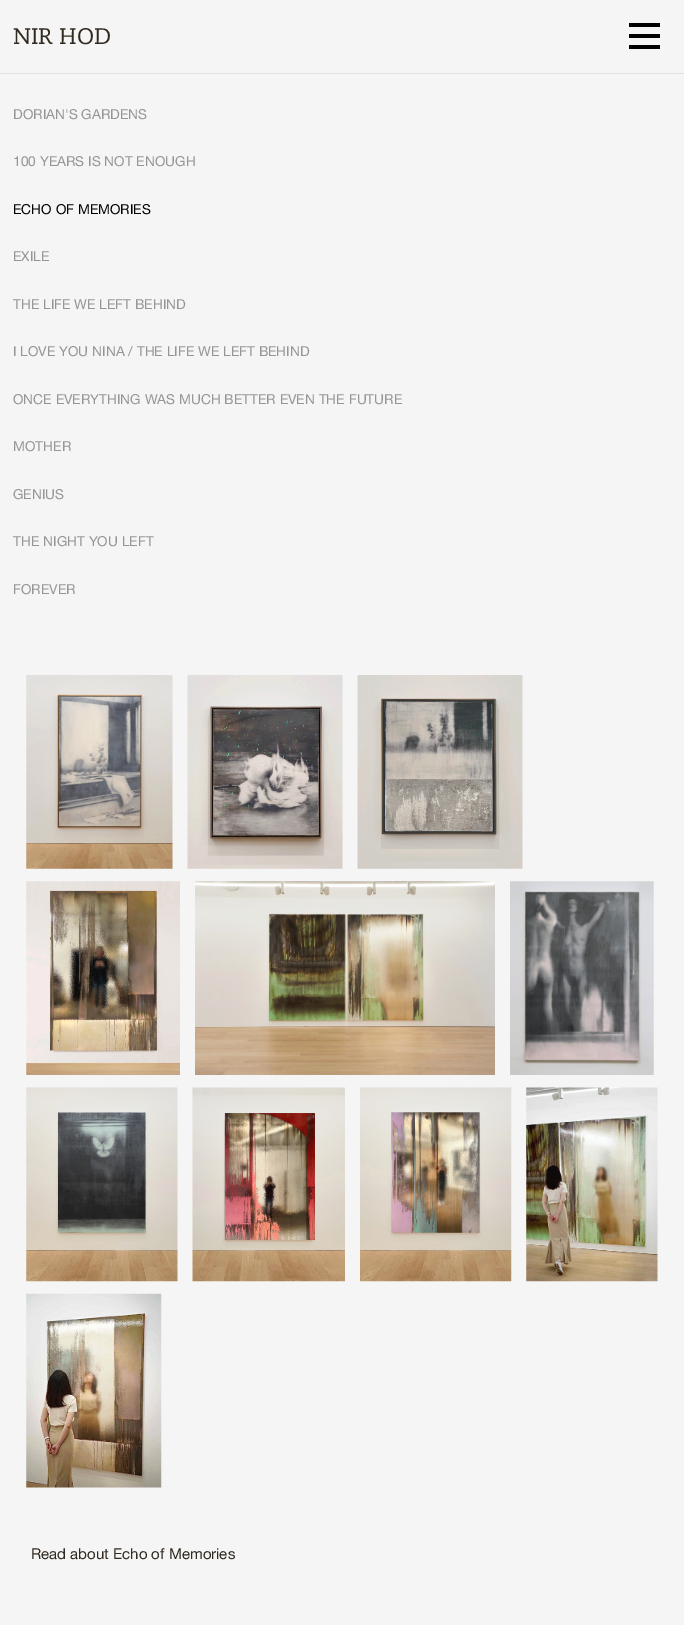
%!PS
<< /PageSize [684 1625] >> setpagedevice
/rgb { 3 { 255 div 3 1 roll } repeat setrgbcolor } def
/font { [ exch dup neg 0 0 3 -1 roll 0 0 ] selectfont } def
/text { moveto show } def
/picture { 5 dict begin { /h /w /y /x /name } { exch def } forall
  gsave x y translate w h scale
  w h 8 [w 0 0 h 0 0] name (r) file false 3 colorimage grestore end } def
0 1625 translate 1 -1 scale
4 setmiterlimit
245 245 245 rgb
0 0 684 1625 rectfill
225 225 225 rgb
0 73 684 1 rectfill
0 0 0 rgb
629 34 31 4 rectfill
629 23 31 4 rectfill
629 45 31 4 rectfill
(img_01.rgb) 26 675 147 194 picture
(img_02.rgb) 187 675 156 194 picture
(img_03.rgb) 357 675 166 194 picture
(img_04.rgb) 26 881 154 194 picture
(img_05.rgb) 195 881 300 194 picture
(img_06.rgb) 510 881 144 194 picture
(img_07.rgb) 26 1087 152 195 picture
(img_08.rgb) 192 1087 153 195 picture
(img_09.rgb) 360 1087 152 195 picture
(img_10.rgb) 526 1087 132 195 picture
(img_11.rgb) 26 1293 136 195 picture
/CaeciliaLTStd-Regular 22.5 font
49 42 32 rgb
(NIR HOD) 13 44 text
/HelveticaNeue-Regular 13.75 font
149 149 149 rgb
(DORIAN'S GARDENS) 13 119 text
(100 YEARS IS NOT ENOUGH) 13 166 text
0 0 0 rgb
(ECHO OF MEMORIES) 13 214 text
149 149 149 rgb
(EXILE) 13 261 text
(THE LIFE WE LEFT BEHIND) 13 309 text
(I LOVE YOU NINA / THE LIFE WE LEFT BEHIND) 13 356 text
(ONCE EVERYTHING WAS MUCH BETTER EVEN THE FUTURE) 13 404 text
(MOTHER) 13 451 text
(GENIUS) 13 499 text
(THE NIGHT YOU LEFT) 13 546 text
(FOREVER) 13 594 text
/HelveticaNeue-Regular 15 font
49 42 32 rgb
(Read about Echo of Memories) 31 1559 text
showpage
